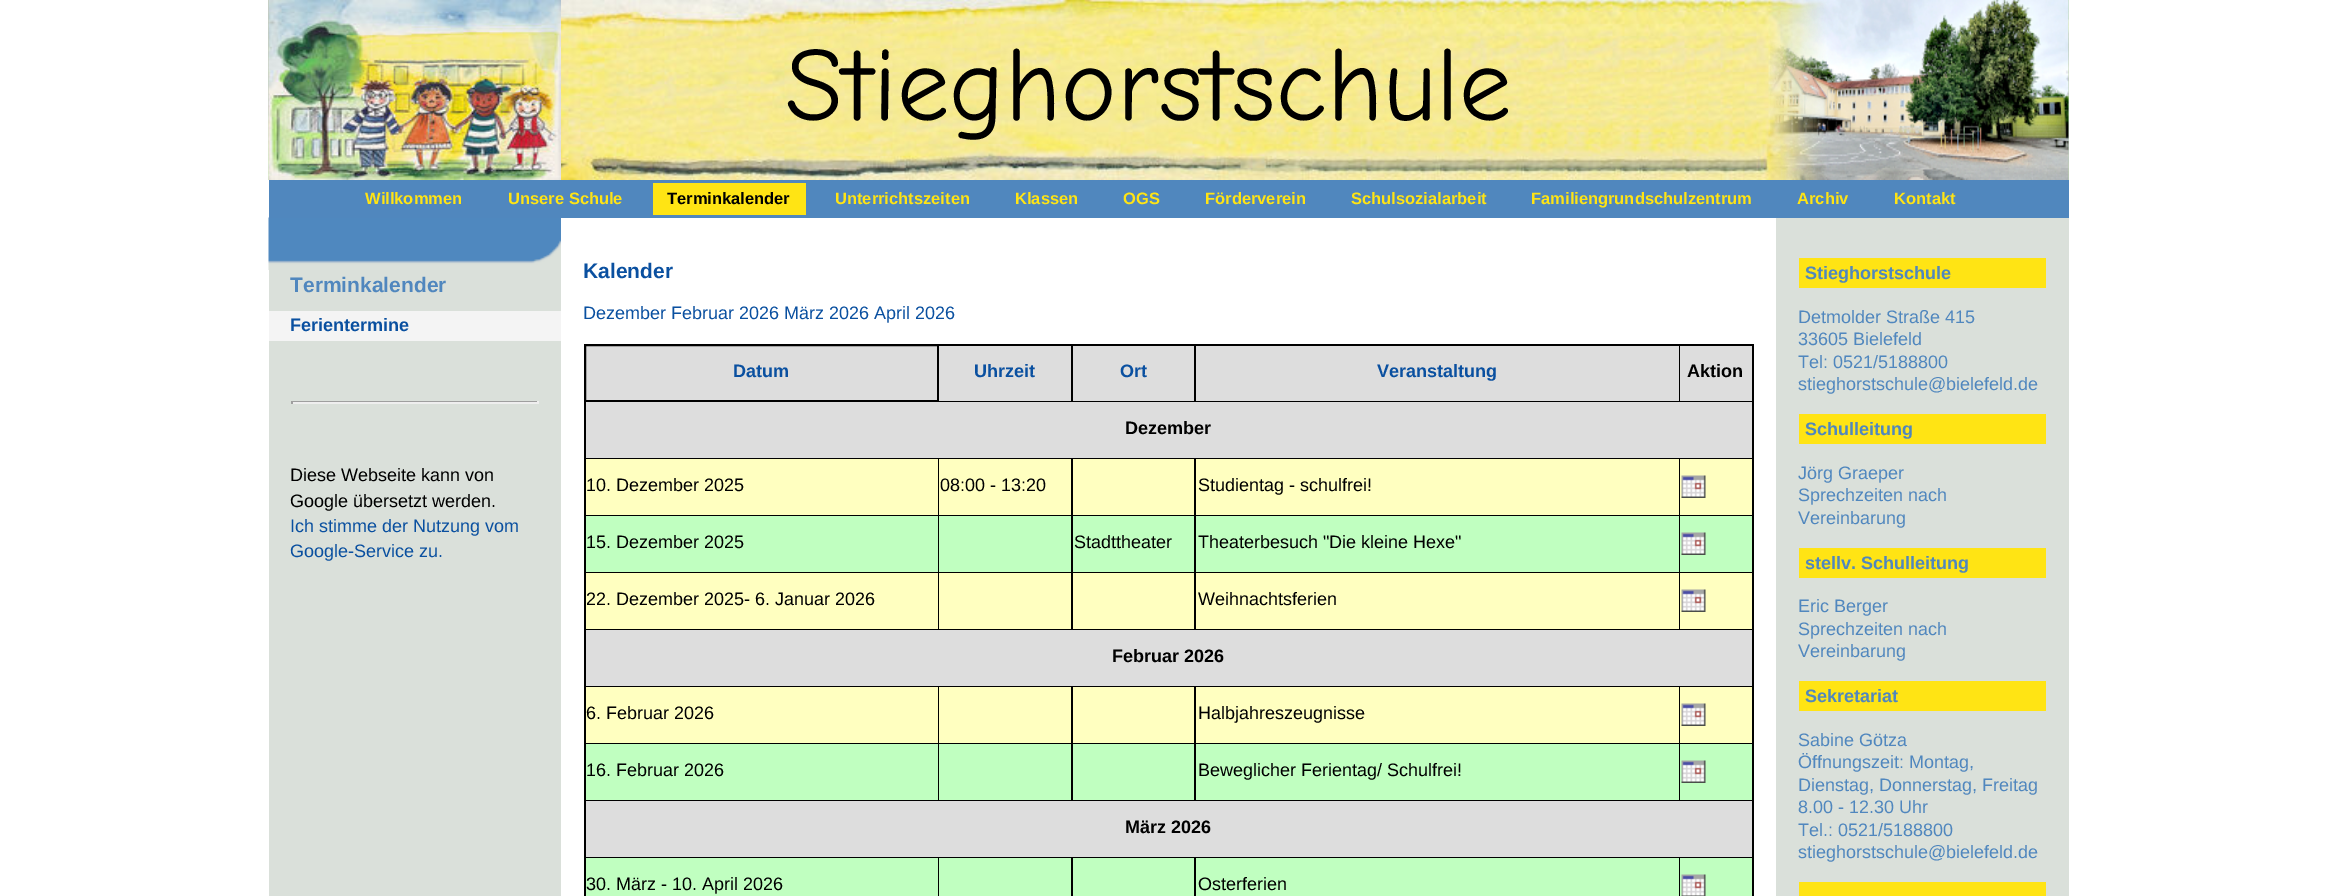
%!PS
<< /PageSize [2335 896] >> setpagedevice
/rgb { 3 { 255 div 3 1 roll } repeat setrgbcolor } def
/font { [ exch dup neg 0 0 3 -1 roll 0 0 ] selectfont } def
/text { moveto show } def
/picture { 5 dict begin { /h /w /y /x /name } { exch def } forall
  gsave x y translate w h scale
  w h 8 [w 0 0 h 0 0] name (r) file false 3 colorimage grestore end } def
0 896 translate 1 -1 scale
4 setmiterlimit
255 255 255 rgb
0 0 2335 896 rectfill
(img_01.rgb) 268 0 1801 180 picture
(img_02.rgb) 268 0 293 180 picture
(img_03.rgb) 1770 0 299 180 picture
(img_04.rgb) 268 217 293 53 picture
80 135 190 rgb
269 180 1800 38 rectfill
255 228 20 rgb
653 183 153 32 rectfill
218 224 218 rgb
269 270 292 626 rectfill
244 244 244 rgb
269 311 292 30 rectfill
159 159 159 rgb
291 401 248 1 rectfill
238 238 238 rgb
537 401 2 3 rectfill
291 402 248 2 rectfill
159 159 159 rgb
291 401 2 3 rectfill
221 221 221 rgb
585 345 moveto 353 0 rlineto 0 56 rlineto -353 0 rlineto closepath gsave fill grestore
0 0 0 rgb
2 setlinewidth
stroke
221 221 221 rgb
939 346 132 55 rectfill
0 0 0 rgb
939 344 815 2 rectfill
1071 344 2 58 rectfill
939 401 134 1 rectfill
221 221 221 rgb
1073 346 121 55 rectfill
0 0 0 rgb
1194 344 2 58 rectfill
1073 401 123 1 rectfill
221 221 221 rgb
1196 346 483 55 rectfill
0 0 0 rgb
1679 344 1 58 rectfill
1196 401 484 1 rectfill
221 221 221 rgb
1680 346 72 55 rectfill
0 0 0 rgb
1752 344 2 552 rectfill
1680 401 74 1 rectfill
221 221 221 rgb
586 402 1166 56 rectfill
0 0 0 rgb
584 458 1170 1 rectfill
584 402 2 57 rectfill
255 255 192 rgb
586 459 352 56 rectfill
0 0 0 rgb
938 459 1 171 rectfill
584 515 355 1 rectfill
584 459 2 57 rectfill
255 255 192 rgb
939 459 132 56 rectfill
0 0 0 rgb
1071 459 2 171 rectfill
939 515 134 1 rectfill
255 255 192 rgb
1073 459 121 56 rectfill
0 0 0 rgb
1194 459 2 171 rectfill
1073 515 123 1 rectfill
255 255 192 rgb
1196 459 483 56 rectfill
0 0 0 rgb
1679 459 1 171 rectfill
1196 515 558 1 rectfill
255 255 192 rgb
1680 459 72 56 rectfill
(img_05.rgb) 1681 475 25 23 picture
192 255 192 rgb
586 516 352 56 rectfill
0 0 0 rgb
584 572 1170 1 rectfill
584 516 2 57 rectfill
192 255 192 rgb
939 516 132 56 rectfill
1073 516 121 56 rectfill
1196 516 483 56 rectfill
1680 516 72 56 rectfill
(img_06.rgb) 1681 532 25 23 picture
255 255 192 rgb
586 573 352 56 rectfill
0 0 0 rgb
584 629 1170 1 rectfill
584 573 2 57 rectfill
255 255 192 rgb
939 573 132 56 rectfill
1073 573 121 56 rectfill
1196 573 483 56 rectfill
1680 573 72 56 rectfill
(img_05.rgb) 1681 589 25 23 picture
221 221 221 rgb
586 630 1166 56 rectfill
0 0 0 rgb
584 686 1170 1 rectfill
584 630 2 57 rectfill
255 255 192 rgb
586 687 352 56 rectfill
0 0 0 rgb
938 687 1 114 rectfill
584 743 355 1 rectfill
584 687 2 57 rectfill
255 255 192 rgb
939 687 132 56 rectfill
0 0 0 rgb
1071 687 2 114 rectfill
939 743 134 1 rectfill
255 255 192 rgb
1073 687 121 56 rectfill
0 0 0 rgb
1194 687 2 114 rectfill
1073 743 123 1 rectfill
255 255 192 rgb
1196 687 483 56 rectfill
0 0 0 rgb
1679 687 1 114 rectfill
1196 743 558 1 rectfill
255 255 192 rgb
1680 687 72 56 rectfill
(img_05.rgb) 1681 703 25 23 picture
192 255 192 rgb
586 744 352 56 rectfill
0 0 0 rgb
584 800 1170 1 rectfill
584 744 2 57 rectfill
192 255 192 rgb
939 744 132 56 rectfill
1073 744 121 56 rectfill
1196 744 483 56 rectfill
1680 744 72 56 rectfill
(img_06.rgb) 1681 760 25 23 picture
221 221 221 rgb
586 801 1166 56 rectfill
0 0 0 rgb
584 857 1170 1 rectfill
584 801 2 95 rectfill
192 255 192 rgb
586 858 352 38 rectfill
0 0 0 rgb
938 858 1 38 rectfill
192 255 192 rgb
939 858 132 38 rectfill
0 0 0 rgb
1071 858 2 38 rectfill
192 255 192 rgb
1073 858 121 38 rectfill
0 0 0 rgb
1194 858 2 38 rectfill
192 255 192 rgb
1196 858 483 38 rectfill
0 0 0 rgb
1679 858 1 38 rectfill
192 255 192 rgb
1680 858 72 38 rectfill
(img_07.rgb) 1681 874 25 22 picture
218 224 218 rgb
1776 218 293 678 rectfill
255 228 20 rgb
1799 258 247 30 rectfill
1799 414 247 30 rectfill
1799 548 247 30 rectfill
1799 681 247 30 rectfill
1799 882 247 14 rectfill
/ComicNeue-Regular 105 font
0 0 0 rgb
(Stieghorstschule) 785 120 text
/LiberationSans-Bold 16.5 font
255 228 20 rgb
(Willkommen) 365 204 text
(Unsere Schule) 508 204 text
0 0 0 rgb
(Terminkalender) 667 204 text
255 228 20 rgb
(Unterrichtszeiten) 835 204 text
(Klassen) 1015 204 text
(OGS) 1123 204 text
(Förderverein) 1205 204 text
(Schulsozialarbeit) 1351 204 text
(Familiengrundschulzentrum) 1531 204 text
(Archiv) 1797 204 text
(Kontakt) 1894 204 text
/LiberationSans-Bold 21 font
80 135 190 rgb
(Terminkalender) 290 292 text
/LiberationSans-Bold 18 font
10 80 160 rgb
(Ferientermine) 290 331 text
/LiberationSans-Regular 18 font
0 0 0 rgb
(Diese Webseite kann von) 290 481 text
(Google übersetzt werden.) 290 507 text
10 80 160 rgb
(Ich stimme der Nutzung vom) 290 532 text
(Google-Service zu.) 290 557 text
/LiberationSans-Bold 21 font
(Kalender) 583 278 text
/LiberationSans-Regular 18 font
(Dezember Februar 2026 März 2026 April 2026) 583 319 text
/LiberationSans-Bold 18 font
(Datum) 733 377 text
(Uhrzeit) 974 377 text
(Ort) 1120 377 text
(Veranstaltung) 1377 377 text
0 0 0 rgb
(Aktion) 1687 377 text
(Dezember) 1125 434 text
/LiberationSans-Regular 18 font
(10. Dezember 2025) 586 491 text
(08:00 - 13:20) 940 491 text
(Studientag - schulfrei!) 1198 491 text
(15. Dezember 2025) 586 548 text
(Stadttheater) 1074 548 text
(Theaterbesuch "Die kleine Hexe") 1198 548 text
(22. Dezember 2025- 6. Januar 2026) 586 605 text
(Weihnachtsferien) 1198 605 text
/LiberationSans-Bold 18 font
(Februar 2026) 1112 662 text
/LiberationSans-Regular 18 font
(6. Februar 2026) 586 719 text
(Halbjahreszeugnisse) 1198 719 text
(16. Februar 2026) 586 776 text
(Beweglicher Ferientag/ Schulfrei!) 1198 776 text
/LiberationSans-Bold 18 font
(März 2026) 1125 833 text
/LiberationSans-Regular 18 font
(30. März - 10. April 2026) 586 890 text
(Osterferien) 1198 890 text
/LiberationSans-Bold 18 font
80 135 190 rgb
(Stieghorstschule) 1805 279 text
/LiberationSans-Regular 18 font
(Detmolder Straße 415) 1798 323 text
(33605 Bielefeld) 1798 345 text
(Tel: 0521/5188800) 1798 368 text
(stieghorstschule@bielefeld.de) 1798 390 text
/LiberationSans-Bold 18 font
(Schulleitung) 1805 435 text
/LiberationSans-Regular 18 font
(Jörg Graeper) 1798 479 text
(Sprechzeiten nach) 1798 501 text
(Vereinbarung) 1798 524 text
/LiberationSans-Bold 18 font
(stellv. Schulleitung) 1805 569 text
/LiberationSans-Regular 18 font
(Eric Berger) 1798 612 text
(Sprechzeiten nach) 1798 635 text
(Vereinbarung) 1798 657 text
/LiberationSans-Bold 18 font
(Sekretariat) 1805 702 text
/LiberationSans-Regular 18 font
(Sabine Götza) 1798 746 text
(Öffnungszeit: Montag,) 1798 768 text
(Dienstag, Donnerstag, Freitag) 1798 791 text
(8.00 - 12.30 Uhr) 1798 813 text
(Tel.: 0521/5188800) 1798 836 text
(stieghorstschule@bielefeld.de) 1798 858 text
showpage
